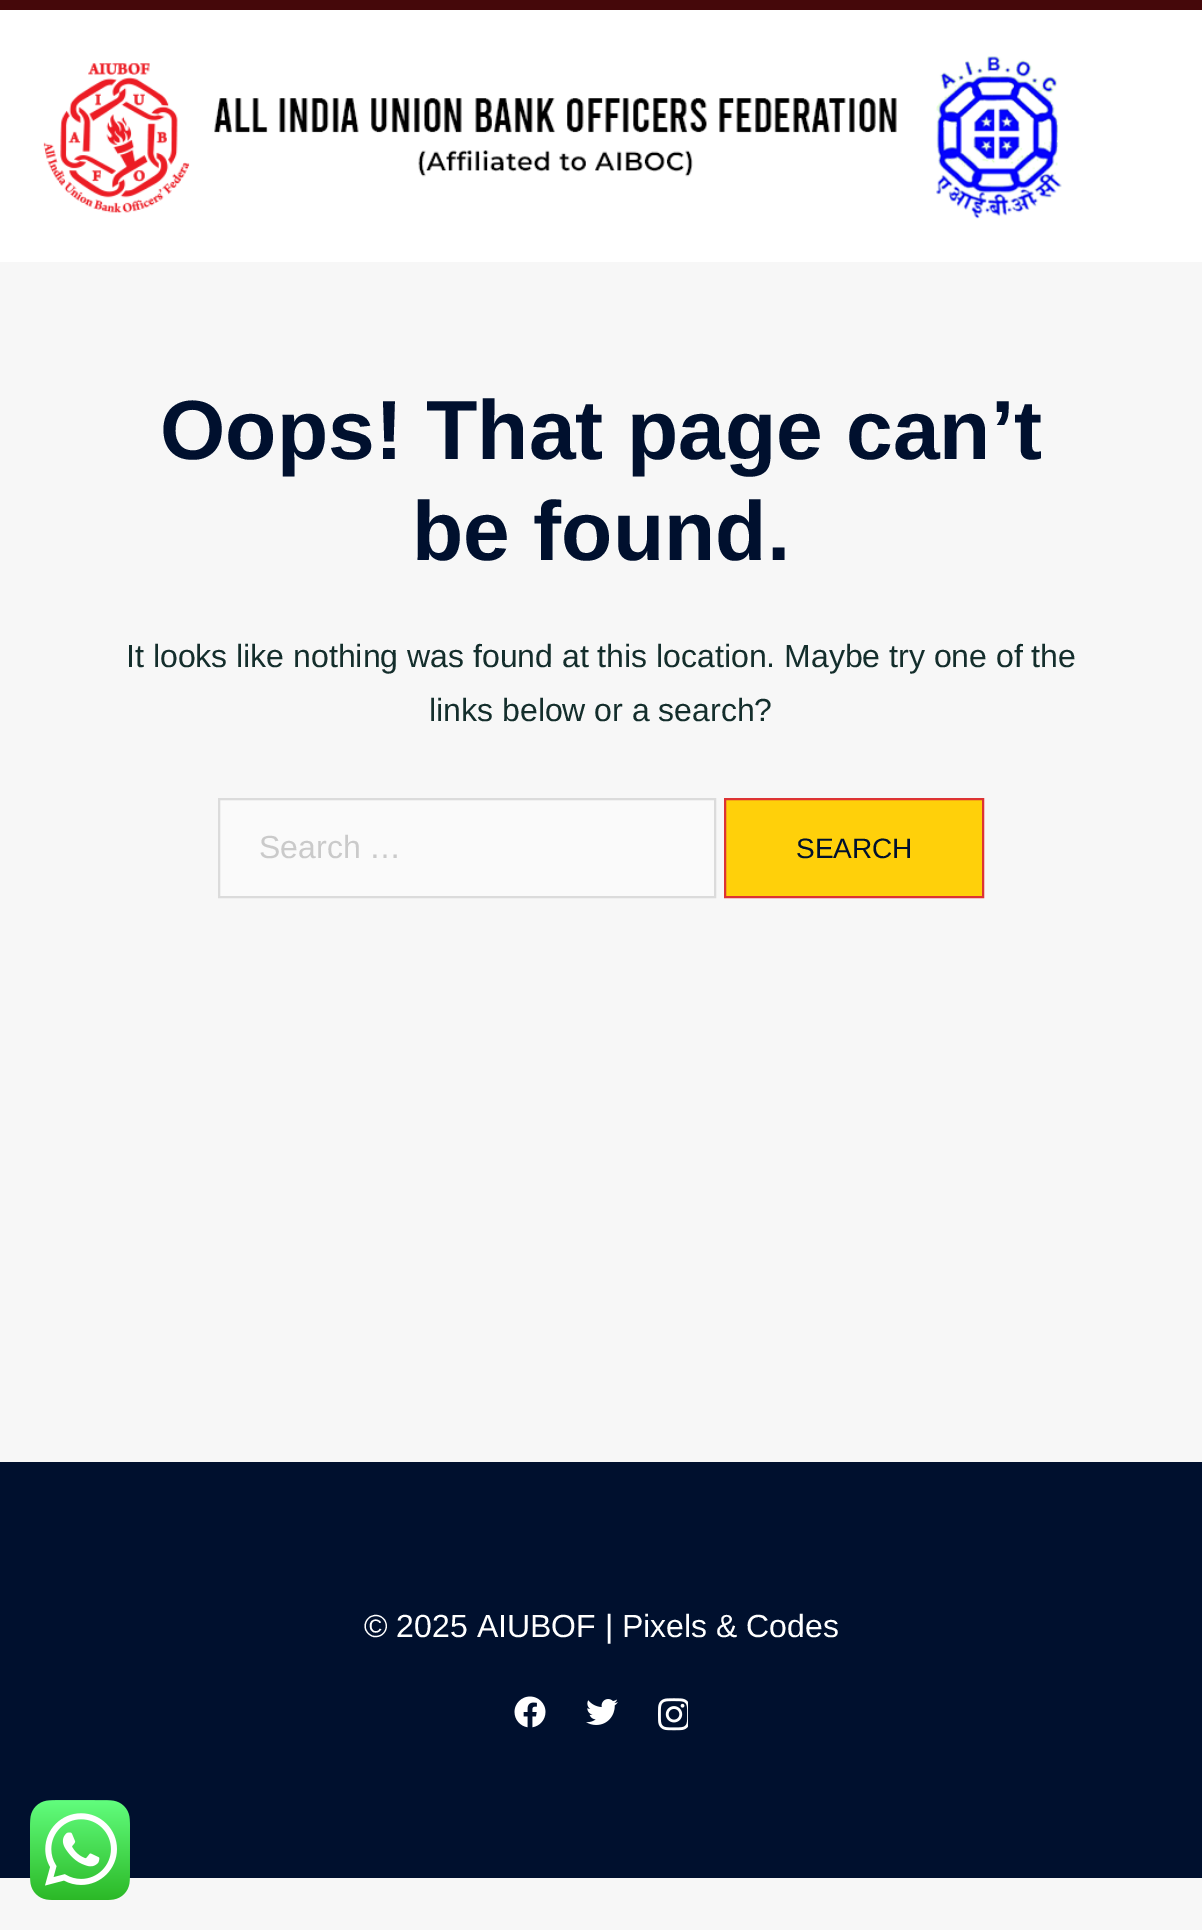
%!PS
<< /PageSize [1202 1930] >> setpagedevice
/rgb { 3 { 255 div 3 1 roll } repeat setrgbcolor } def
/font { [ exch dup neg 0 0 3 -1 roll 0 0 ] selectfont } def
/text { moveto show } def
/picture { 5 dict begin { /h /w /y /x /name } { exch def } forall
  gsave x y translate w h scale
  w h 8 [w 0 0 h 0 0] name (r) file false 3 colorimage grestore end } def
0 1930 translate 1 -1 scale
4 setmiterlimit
247 247 247 rgb
0 0 1202 1930 rectfill
255 255 255 rgb
0 10 1202 252 rectfill
69 8 10 rgb
0 0 1202 10 rectfill
(img_01.rgb) 43 56 1019 163 picture
250 250 250 rgb
219 799 moveto 496 0 rlineto 0 98 rlineto -496 0 rlineto closepath gsave fill grestore
219 219 219 rgb
2 setlinewidth
stroke
255 208 10 rgb
725 799 moveto 258 0 rlineto 0 98 rlineto -258 0 rlineto closepath gsave fill grestore
221 51 51 rgb
stroke
0 16 46 rgb
0 1462 1202 416 rectfill
(img_02.rgb) 514 1696 32 32 picture
(img_03.rgb) 586 1699 32 26 picture
(img_04.rgb) 658 1698 30 33 picture
(img_05.rgb) 30 1800 100 100 picture
/LiberationSans-Bold 84 font
(Oops! That page can’t) 160 459 text
(be found.) 412 560 text
/LiberationSans-Regular 32 font
20 46 44 rgb
(It looks like nothing was found at this location. Maybe try one of the) 126 667 text
(links below or a search?) 429 721 text
202 202 202 rgb
(Search …) 259 858 text
/LiberationSans-Regular 28 font
0 16 46 rgb
(SEARCH) 796 858 text
/LiberationSans-Regular 32 font
255 255 255 rgb
(© 2025 AIUBOF | Pixels & Codes) 364 1637 text
showpage
